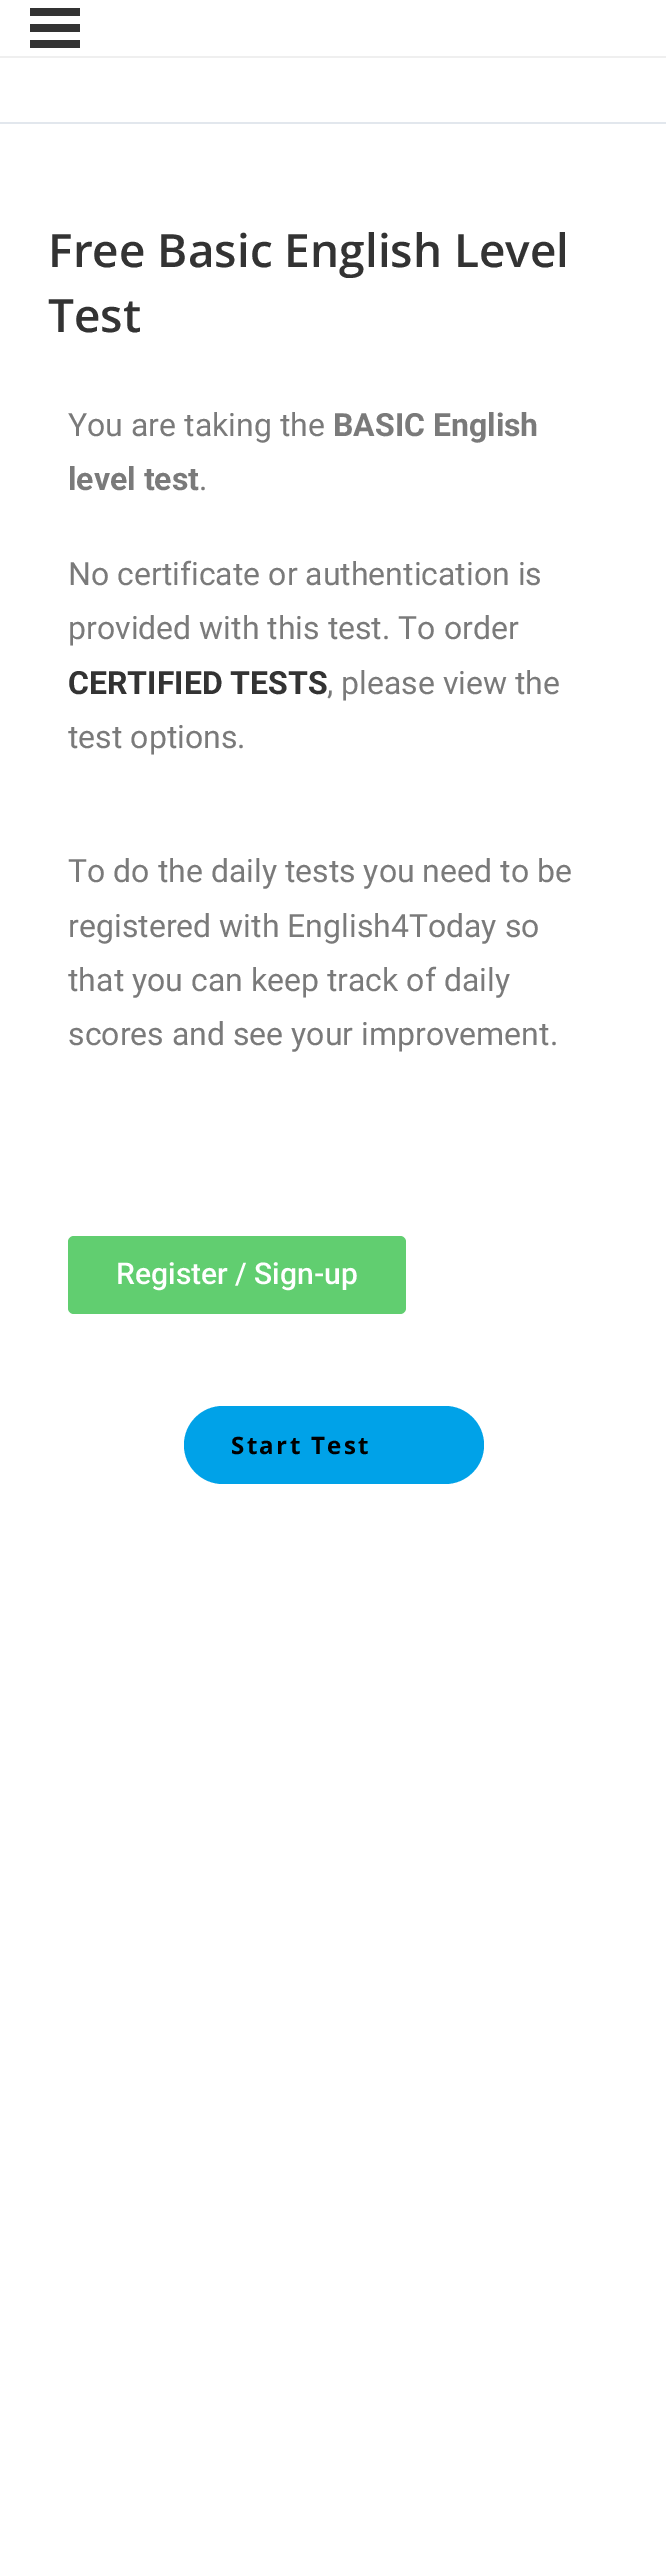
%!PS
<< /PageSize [666 2553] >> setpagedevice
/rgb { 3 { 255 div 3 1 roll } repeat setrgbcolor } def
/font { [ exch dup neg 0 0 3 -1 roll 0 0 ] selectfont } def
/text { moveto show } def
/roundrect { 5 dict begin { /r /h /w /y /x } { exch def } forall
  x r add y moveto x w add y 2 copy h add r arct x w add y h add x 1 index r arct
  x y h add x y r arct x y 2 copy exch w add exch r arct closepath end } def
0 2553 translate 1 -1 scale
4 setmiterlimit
255 255 255 rgb
0 0 666 2553 rectfill
226 231 237 rgb
0 122 666 2 rectfill
51 51 51 rgb
30 8 50 8 rectfill
30 24 50 8 rectfill
30 40 50 8 rectfill
239 239 239 rgb
0 56 666 2 rectfill
97 206 112 rgb
68 1236 338 78 6 roundrect fill
0 162 232 rgb
184 1406 300 78 39 roundrect fill
/OpenSans-SemiBold 46 font
51 51 51 rgb
(Free Basic English Level) 48 267 text
(Test) 48 332 text
/Roboto-Regular 32 font
122 122 122 rgb
(You are taking the) 68 436 text
/Roboto-Bold 32 font
(BASIC English) 333 436 text
(level test) 68 490 text
/Roboto-Regular 32 font
(.) 199 490 text
(No certificate or authentication is) 68 585 text
(provided with this test. To order) 68 639 text
/Roboto-Bold 32 font
51 51 51 rgb
(CERTIFIED TESTS) 68 694 text
/Roboto-Regular 32 font
122 122 122 rgb
(, please view the) 327 694 text
(test options.) 68 748 text
(To do the daily tests you need to be) 68 882 text
(registered with English4Today so) 68 937 text
(that you can keep track of daily) 68 991 text
(scores and see your improvement.) 68 1045 text
/Roboto-Medium 30 font
255 255 255 rgb
(Register / Sign-up) 116 1284 text
/OpenSans-Bold 24 font
0 0 0 rgb
231 1454 moveto 2.4 0 (Start Test) ashow
showpage
